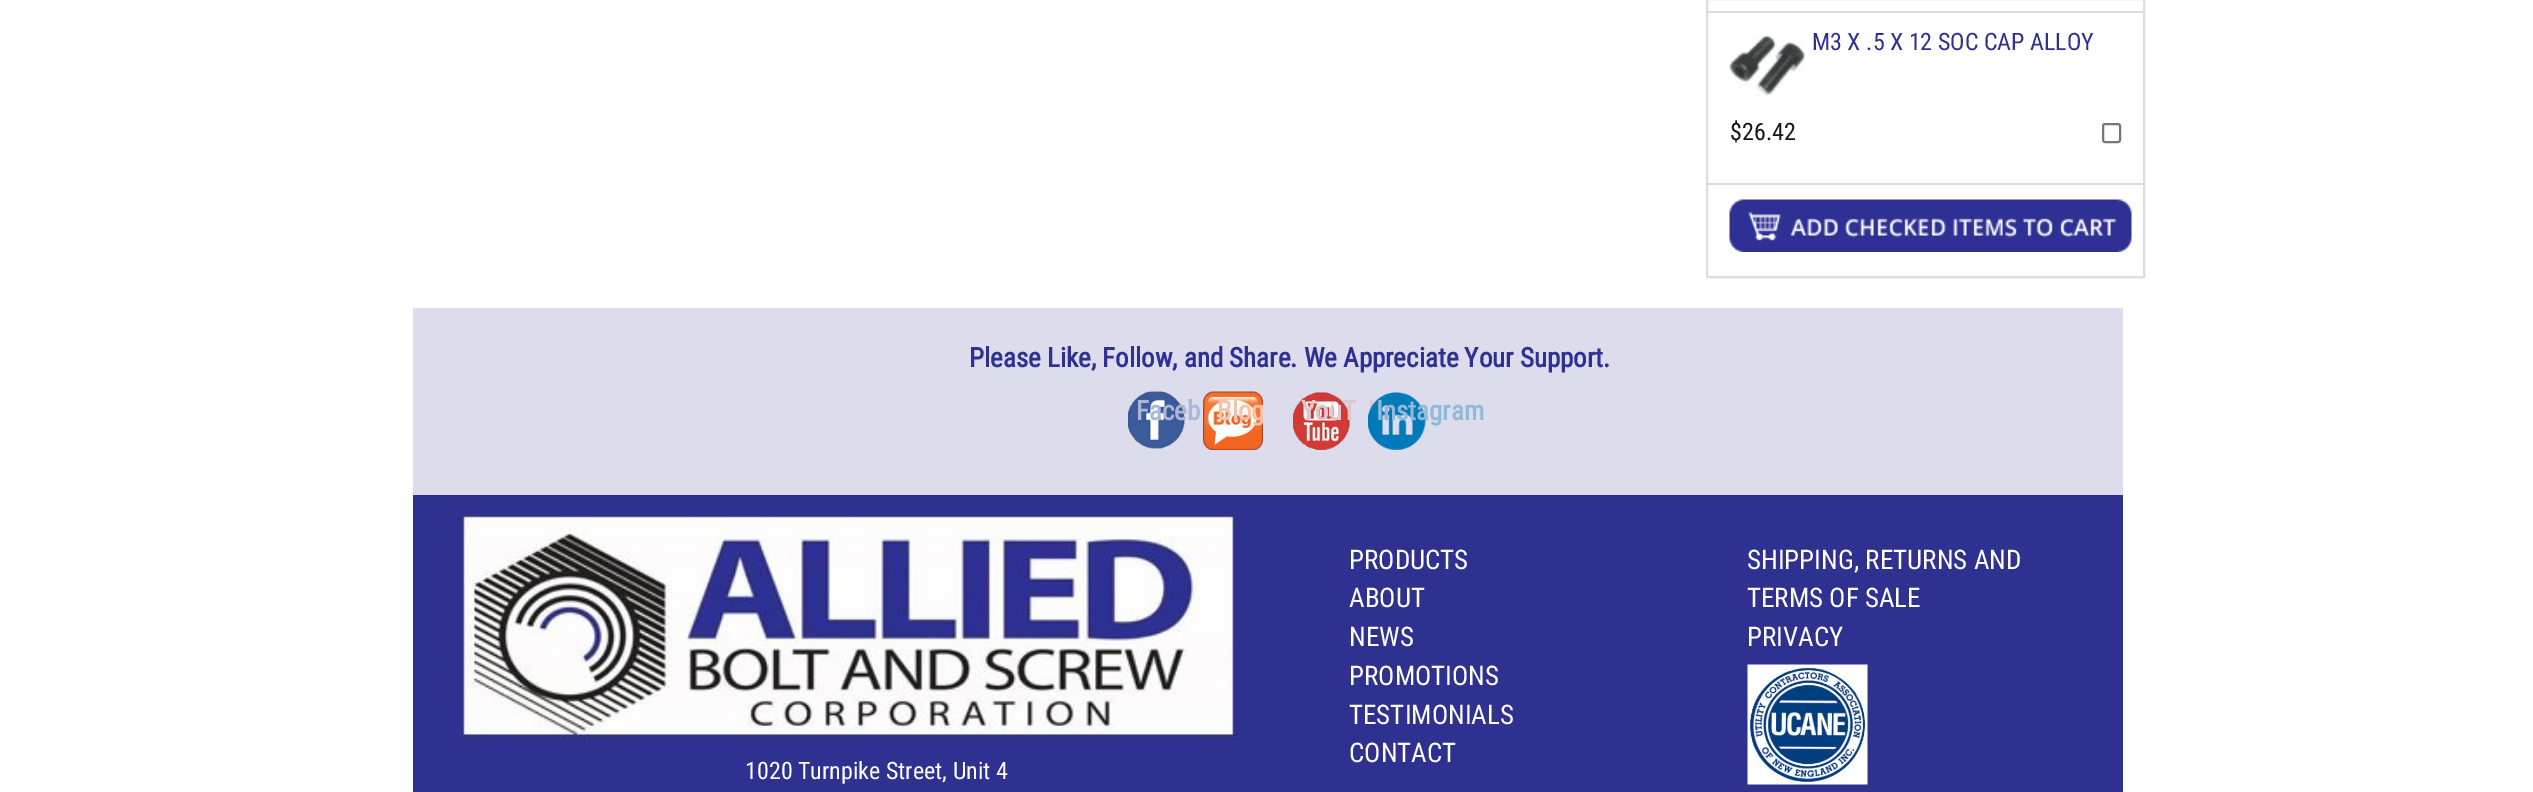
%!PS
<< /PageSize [2533 792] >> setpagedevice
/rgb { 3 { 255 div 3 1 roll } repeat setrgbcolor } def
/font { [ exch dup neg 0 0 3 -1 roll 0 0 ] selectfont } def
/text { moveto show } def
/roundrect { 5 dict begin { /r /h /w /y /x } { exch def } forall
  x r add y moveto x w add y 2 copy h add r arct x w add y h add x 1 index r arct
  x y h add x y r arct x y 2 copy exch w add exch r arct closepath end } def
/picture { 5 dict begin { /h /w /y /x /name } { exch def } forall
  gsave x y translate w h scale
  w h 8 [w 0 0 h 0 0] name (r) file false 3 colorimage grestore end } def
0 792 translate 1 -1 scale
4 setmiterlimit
255 255 255 rgb
0 0 2533 792 rectfill
221 221 221 rgb
2 setlinewidth
1707 -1 437 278 rectstroke
1707 11 437 2 rectfill
1707 183 437 2 rectfill
(img_01.rgb) 1729 35 76 61 picture
118 118 118 rgb
2103 124 17 18 2 roundrect stroke
(img_02.rgb) 1729 199 403 53 picture
220 220 237 rgb
413 308 1710 187 rectfill
(img_03.rgb) 1128 391 57 58 picture
(img_04.rgb) 1203 391 60 59 picture
(img_05.rgb) 1293 392 57 58 picture
(img_06.rgb) 1368 392 58 58 picture
46 49 144 rgb
413 495 1710 297 rectfill
(img_07.rgb) 1747 664 121 121 picture
(img_08.rgb) 450 510 795 230 picture
/RobotoCondensed-Regular 24 font
46 48 148 rgb
(M3 X .5 X 12 SOC CAP ALLOY) 1812 50 text
22 22 22 rgb
($26.42) 1730 140 text
/RobotoCondensed-Bold 27 font
46 48 148 rgb
(Please Like, Follow, and Share. We Appreciate Your Support.) 969 367 text
173 183 213 rgb
(Faceb) 1136 420 text
247 195 170 rgb
(Blog) 1217 420 text
225 197 205 rgb
(YouT) 1301 420 text
145 186 218 rgb
(Instagram) 1376 420 text
/RobotoCondensed-Regular 27 font
255 255 255 rgb
(PRODUCTS) 1349 569 text
(ABOUT) 1349 607 text
(NEWS) 1349 646 text
(PROMOTIONS) 1349 685 text
(TESTIMONIALS) 1349 724 text
(CONTACT) 1349 762 text
(SHIPPING, RETURNS AND) 1747 569 text
(TERMS OF SALE) 1747 607 text
(PRIVACY) 1747 646 text
/RobotoCondensed-Regular 24 font
(1020 Turnpike Street, Unit 4) 745 779 text
showpage
